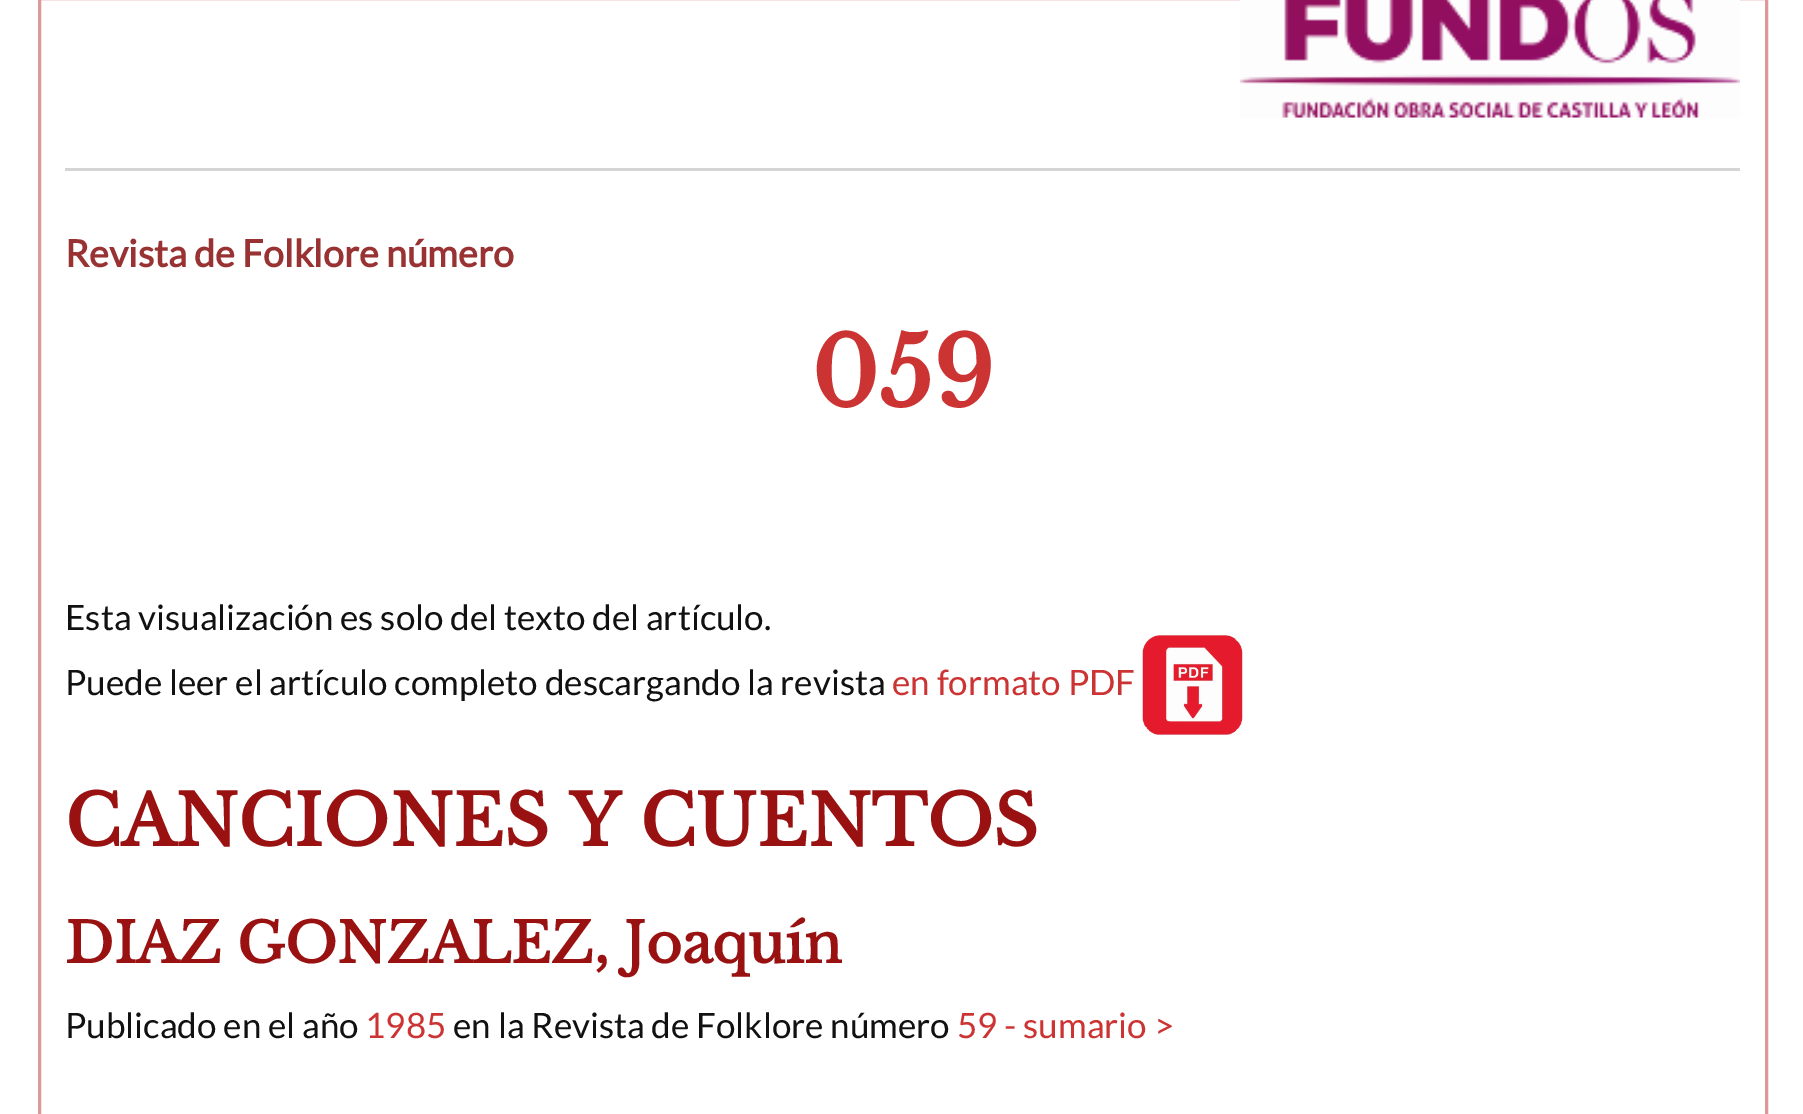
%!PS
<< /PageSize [1803 1114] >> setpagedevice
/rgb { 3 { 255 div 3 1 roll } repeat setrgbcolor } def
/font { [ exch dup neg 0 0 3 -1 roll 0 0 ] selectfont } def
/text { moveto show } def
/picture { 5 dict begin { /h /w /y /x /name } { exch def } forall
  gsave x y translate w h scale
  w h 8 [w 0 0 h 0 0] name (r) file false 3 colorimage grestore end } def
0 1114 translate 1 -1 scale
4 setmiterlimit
255 255 255 rgb
0 0 1803 1114 rectfill
221 153 153 rgb
3 setlinewidth
39.5 -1.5 1727 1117 rectstroke
(img_01.rgb) 1240 0 500 118 picture
213 213 213 rgb
65 168 1675 3 rectfill
(img_02.rgb) 1142 635 101 100 picture
/Lato-Bold 37.5 font
153 51 51 rgb
(Revista de Folklore número) 65 267 text
/LibreBaskerville-Bold 95 font
204 51 51 rgb
(059) 811 407 text
/Lato-Regular 35 font
17 17 17 rgb
(Esta visualización es solo del texto del artículo.) 65 630 text
(Puede leer el artículo completo descargando la revista) 65 695 text
204 51 51 rgb
(en formato PDF) 892 695 text
/LibreBaskerville-Bold 70 font
153 17 17 rgb
(CANCIONES Y CUENTOS) 65 846 text
/LibreBaskerville-Bold 55 font
(DIAZ GONZALEZ, Joaquín) 65 963 text
/Lato-Regular 35 font
17 17 17 rgb
(Publicado en el año) 65 1038 text
204 51 51 rgb
(1985) 365 1038 text
17 17 17 rgb
(en la Revista de Folklore número) 453 1038 text
204 51 51 rgb
(59 - sumario >) 957 1038 text
showpage
